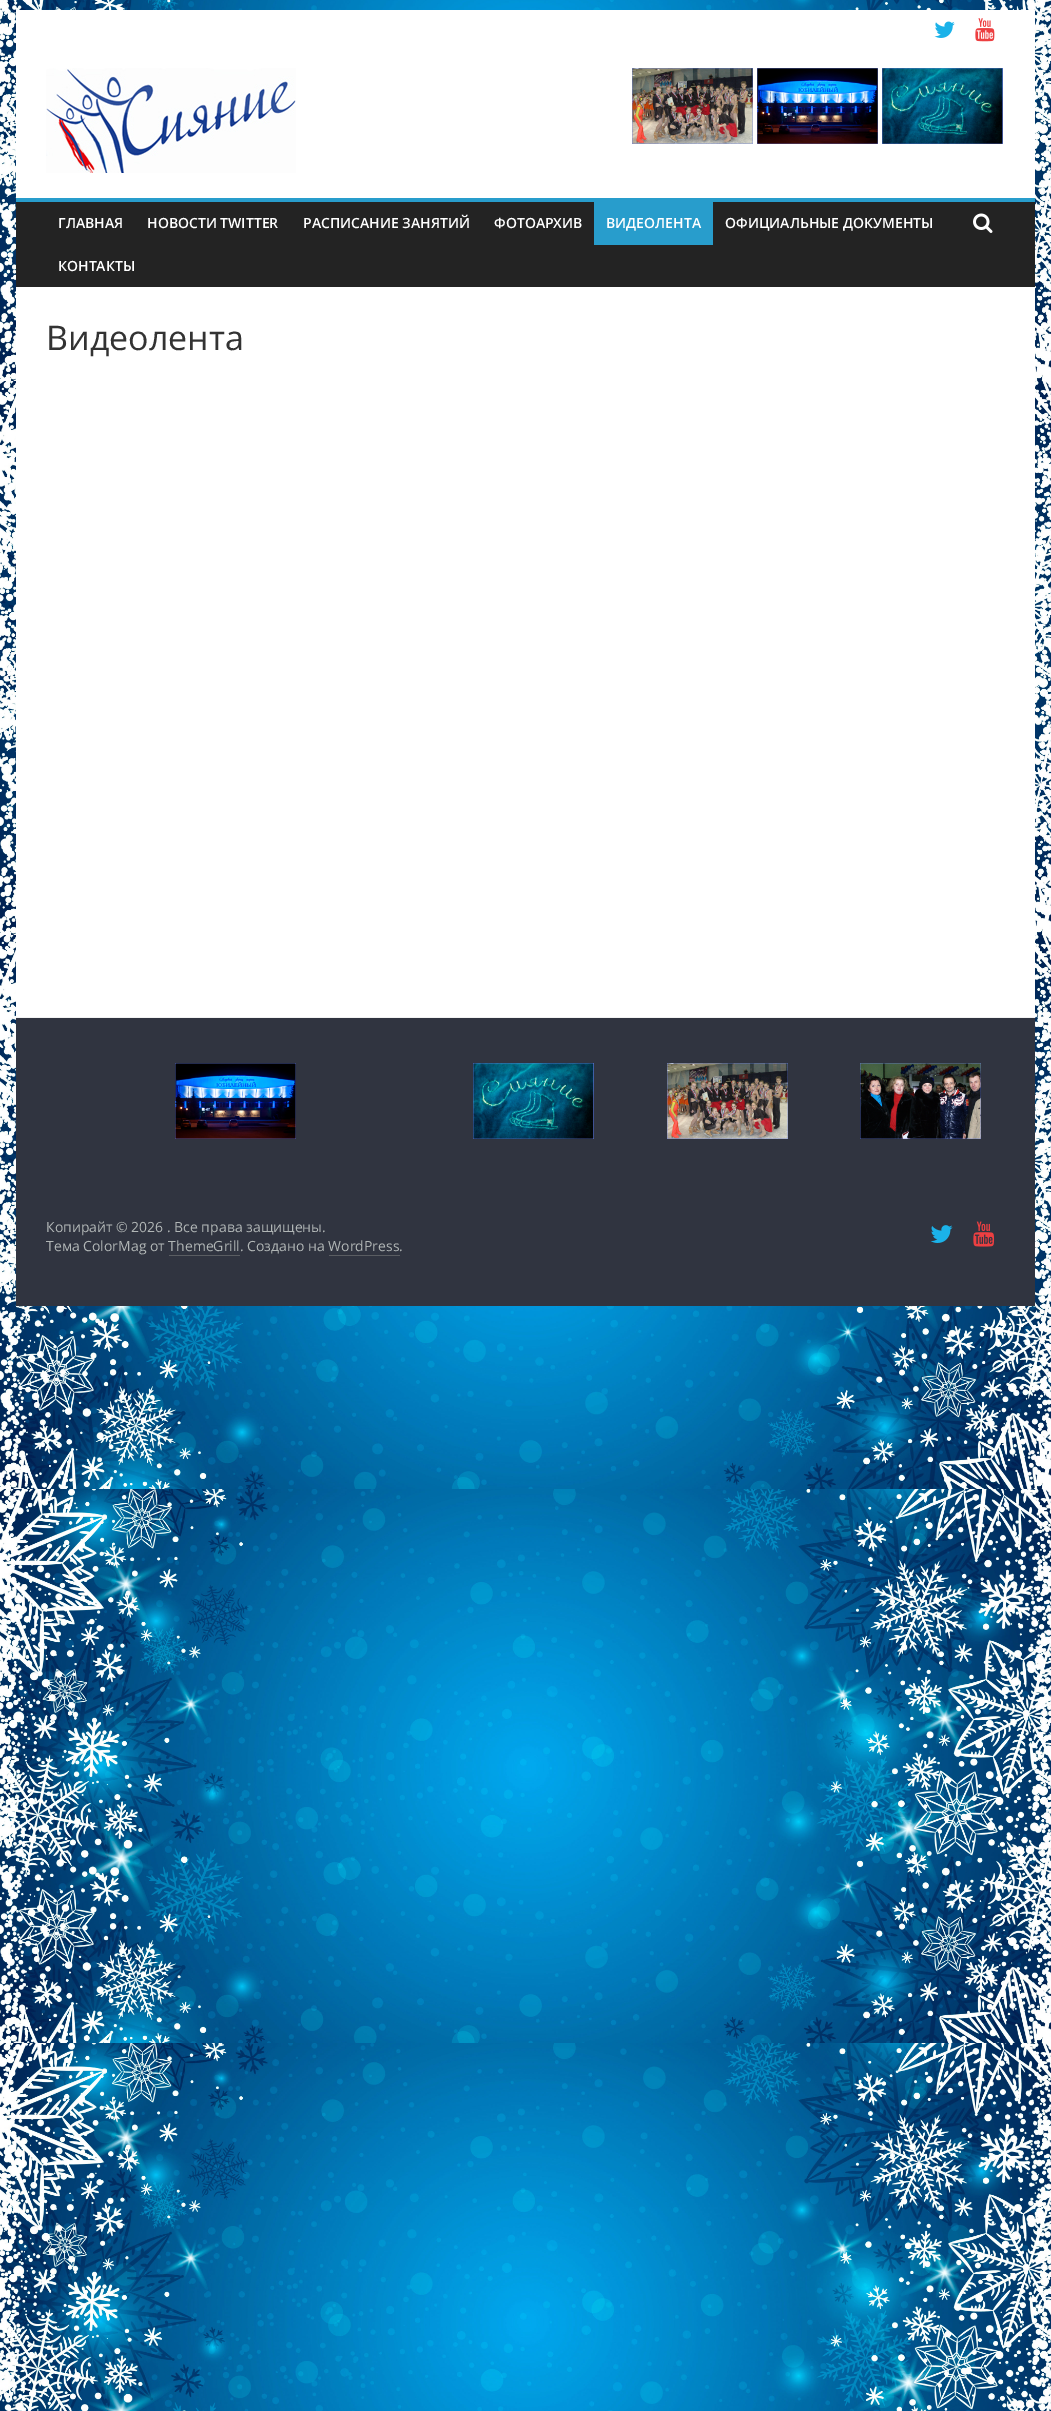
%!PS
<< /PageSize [1051 2411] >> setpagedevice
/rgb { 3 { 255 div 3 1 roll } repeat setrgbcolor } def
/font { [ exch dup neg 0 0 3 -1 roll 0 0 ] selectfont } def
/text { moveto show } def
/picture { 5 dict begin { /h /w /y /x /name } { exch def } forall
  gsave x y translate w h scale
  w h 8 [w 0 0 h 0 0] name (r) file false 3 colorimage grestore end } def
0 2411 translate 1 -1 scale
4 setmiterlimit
255 255 255 rgb
0 0 1051 2411 rectfill
(img_01.rgb) 0 0 1051 2411 picture
16 10 1019 188 rectfill
(img_02.rgb) 934 21 21 17 picture
(img_03.rgb) 975 18 20 24 picture
(img_04.rgb) 46 68 250 105 picture
(img_05.rgb) 632 68 121 76 picture
(img_06.rgb) 757 68 121 76 picture
(img_07.rgb) 882 68 121 76 picture
35 35 35 rgb
16 202 1019 85 rectfill
40 157 204 rgb
16 198 1019 4 rectfill
594 202 119 43 rectfill
(img_08.rgb) 973 213 20 20 picture
255 255 255 rgb
16 287 1019 730 rectfill
48 52 64 rgb
16 1018 1019 288 rectfill
242 242 242 rgb
16 1017 1019 1 rectfill
(img_09.rgb) 175 1063 121 76 picture
(img_10.rgb) 473 1063 121 76 picture
(img_11.rgb) 667 1063 121 76 picture
(img_12.rgb) 860 1063 121 76 picture
90 93 98 rgb
169 1255 71 1 rectfill
329 1255 71 1 rectfill
(img_13.rgb) 930 1225 23 18 picture
(img_14.rgb) 973 1221 22 26 picture
/OpenSans-SemiBold 14 font
255 255 255 rgb
(ГЛАВНАЯ) 58 228 text
(НОВОСТИ TWITTER) 147 228 text
(РАСПИСАНИЕ ЗАНЯТИЙ) 303 228 text
(ФОТОАРХИВ) 494 228 text
(ВИДЕОЛЕНТА) 606 228 text
(ОФИЦИАЛЬНЫЕ ДОКУМЕНТЫ) 725 228 text
(КОНТАКТЫ) 58 271 text
/OpenSans-Regular 34 font
51 51 51 rgb
(Видеолента) 46 350 text
/OpenSans-Regular 14 font
177 182 182 rgb
(Копирайт © 2026 . Все права защищены.) 46 1232 text
(Тема ColorMag от ThemeGrill. Создано на WordPress.) 46 1251 text
showpage
